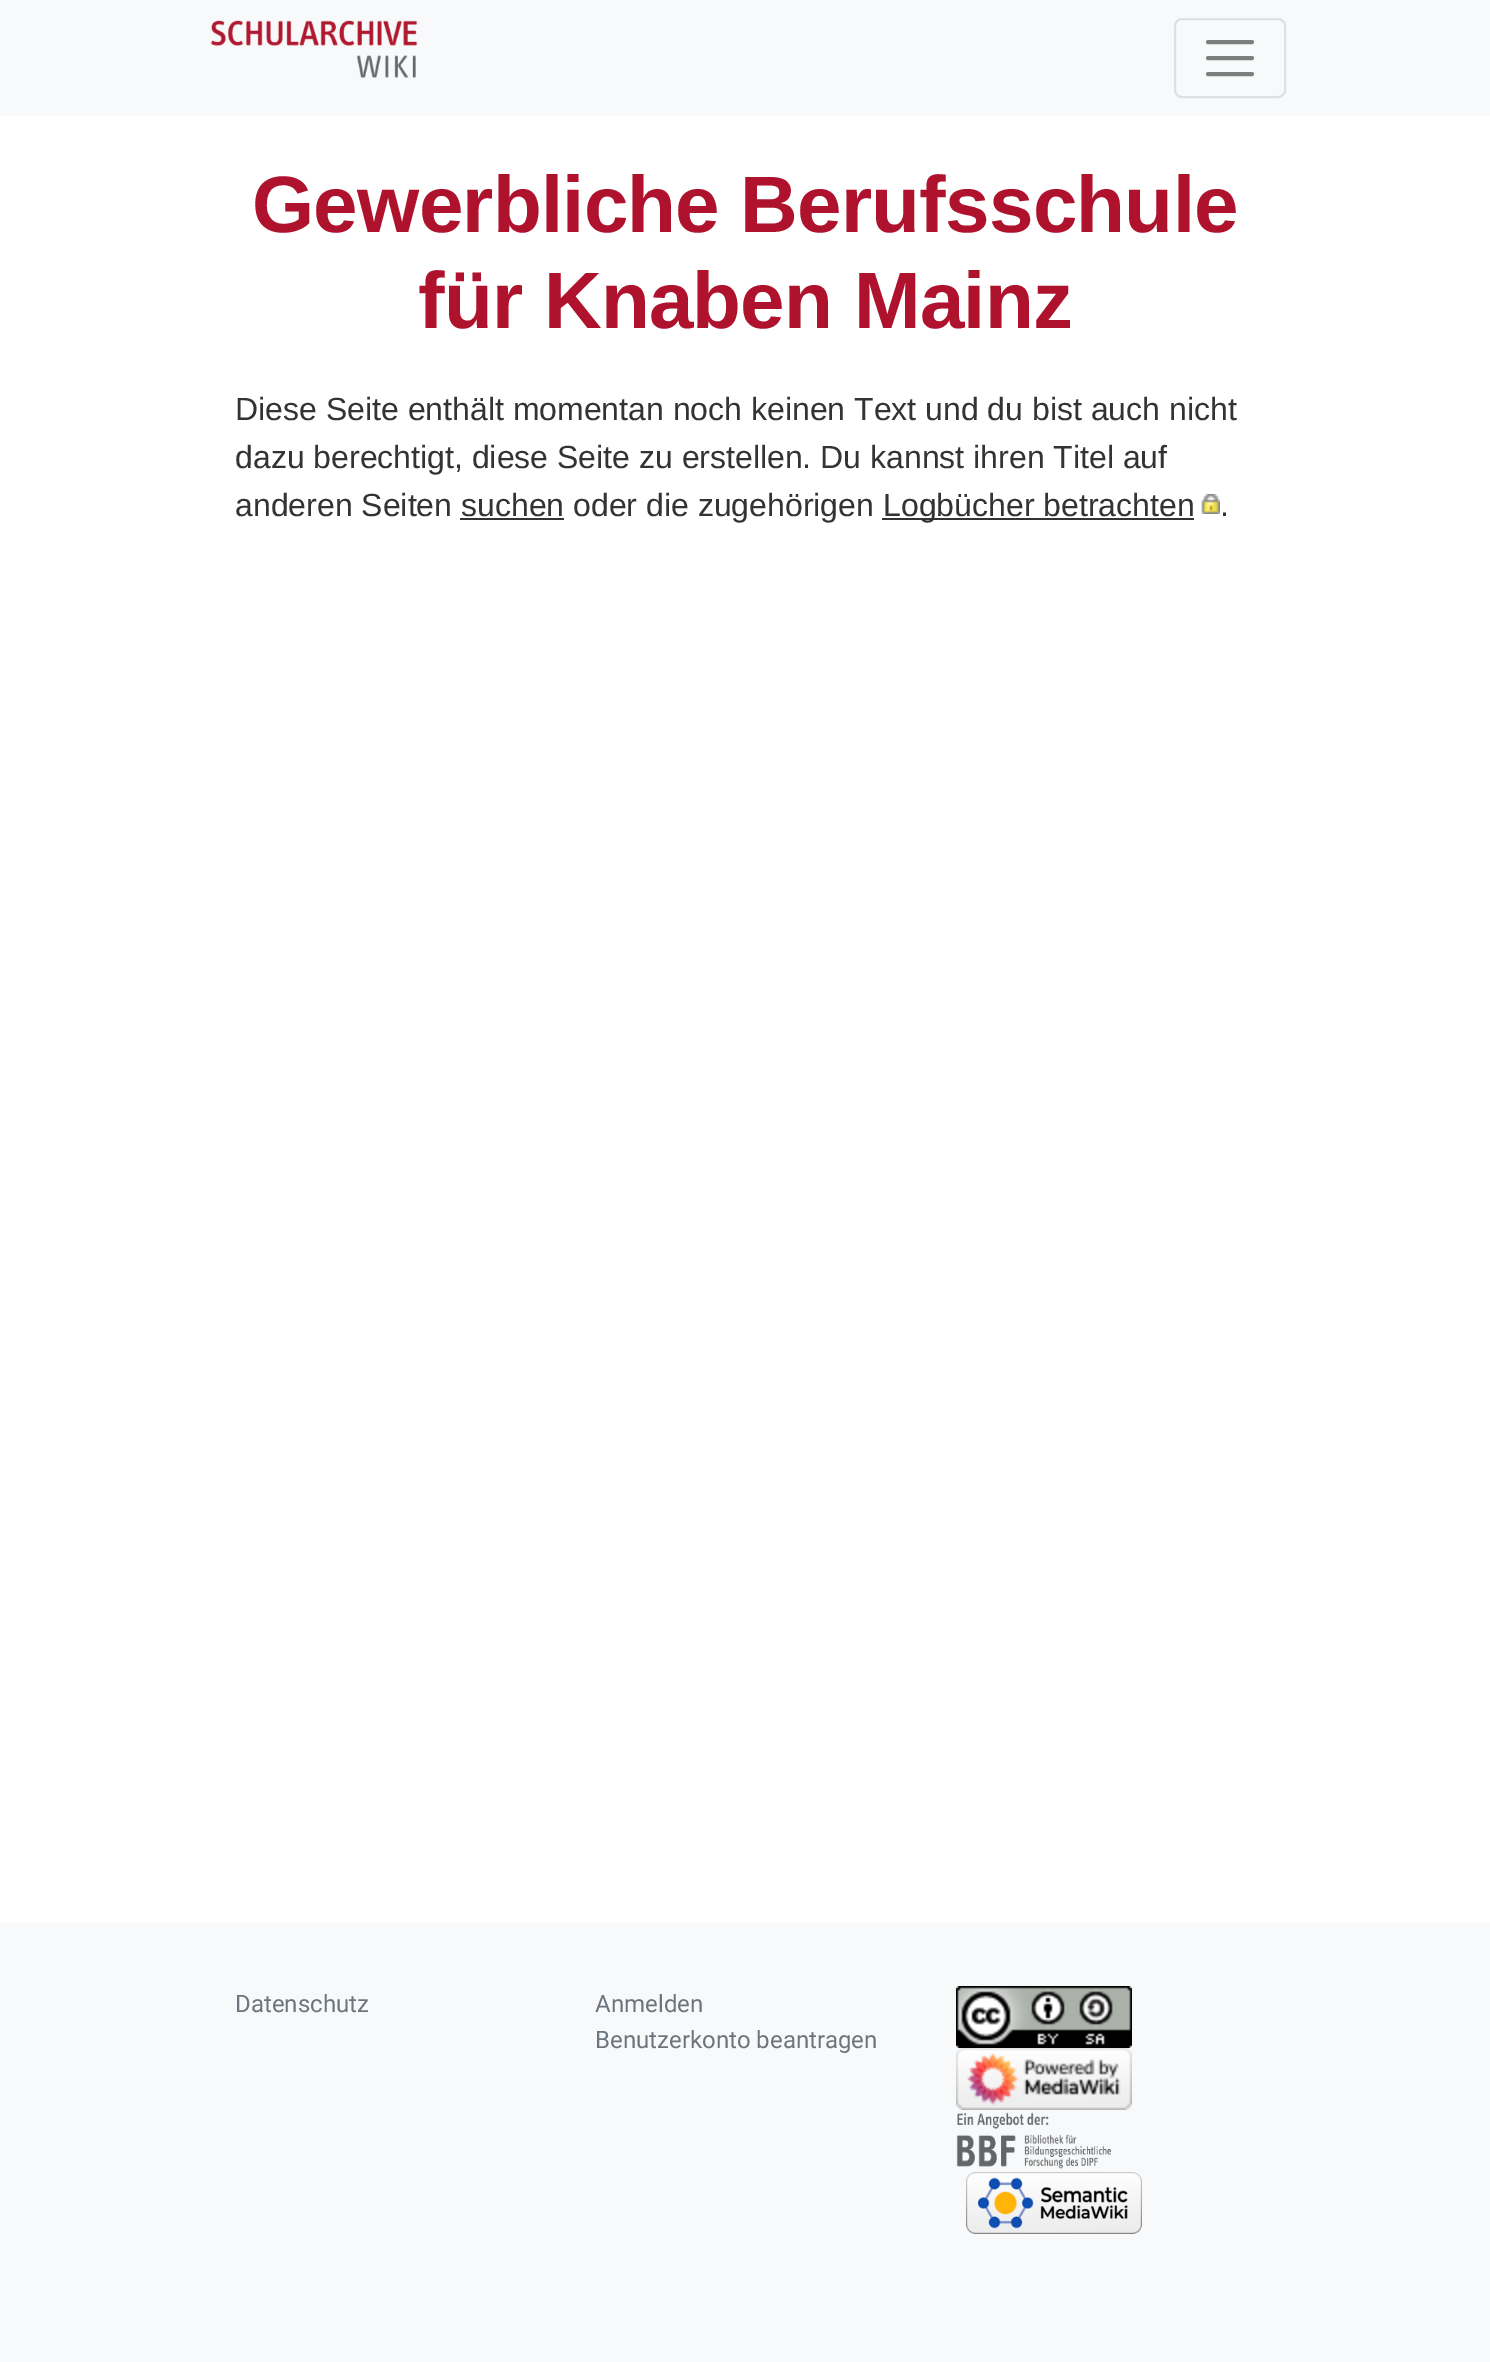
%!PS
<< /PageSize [1490 2362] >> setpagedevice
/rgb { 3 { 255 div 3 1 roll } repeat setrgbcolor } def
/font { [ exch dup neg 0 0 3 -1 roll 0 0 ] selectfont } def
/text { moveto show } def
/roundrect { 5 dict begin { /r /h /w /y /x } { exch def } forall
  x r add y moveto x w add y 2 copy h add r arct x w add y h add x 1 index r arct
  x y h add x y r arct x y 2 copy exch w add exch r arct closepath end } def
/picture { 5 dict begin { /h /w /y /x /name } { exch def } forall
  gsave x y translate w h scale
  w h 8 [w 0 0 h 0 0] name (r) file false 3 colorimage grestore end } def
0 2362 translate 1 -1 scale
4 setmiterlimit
255 255 255 rgb
0 0 1490 2362 rectfill
248 249 250 rgb
0 0 1490 116 rectfill
(img_01.rgb) 210 20 208 58 picture
223 224 225 rgb
2 setlinewidth
1175 19 110 78 7 roundrect stroke
124 125 125 rgb
4 setlinewidth
1 setlinecap
1208 42 moveto 44 0 rlineto 1208 58 moveto 44 0 rlineto 1208 74 moveto 44 0 rlineto stroke
51 51 51 rgb
882 518 312 2 rectfill
(img_02.rgb) 1201 494 19 20 picture
460 518 104 2 rectfill
248 249 250 rgb
0 1922 1490 440 rectfill
(img_03.rgb) 956 1986 176 62 picture
(img_04.rgb) 956 2048 176 62 picture
(img_05.rgb) 956 2112 156 57 picture
(img_06.rgb) 966 2172 176 62 picture
/LiberationSans-Bold 80 font
175 18 44 rgb
252 232 moveto -0.8 0 (Gewerbliche Berufsschule) ashow
418 328 moveto -0.8 0 (für Knaben Mainz) ashow
/LiberationSans-Regular 32 font
51 51 51 rgb
(Diese Seite enthält momentan noch keinen Text und du bist auch nicht) 235 420 text
(dazu berechtigt, diese Seite zu erstellen. Du kannst ihren Titel auf) 235 468 text
(anderen Seiten suchen oder die zugehörigen) 235 516 text
(Logbücher betrachten) 883 516 text
(.) 1220 516 text
/Roboto-Regular 24 font
108 117 125 rgb
(Datenschutz) 235 2012 text
(Anmelden) 595 2012 text
(Benutzerkonto beantragen) 595 2048 text
showpage
